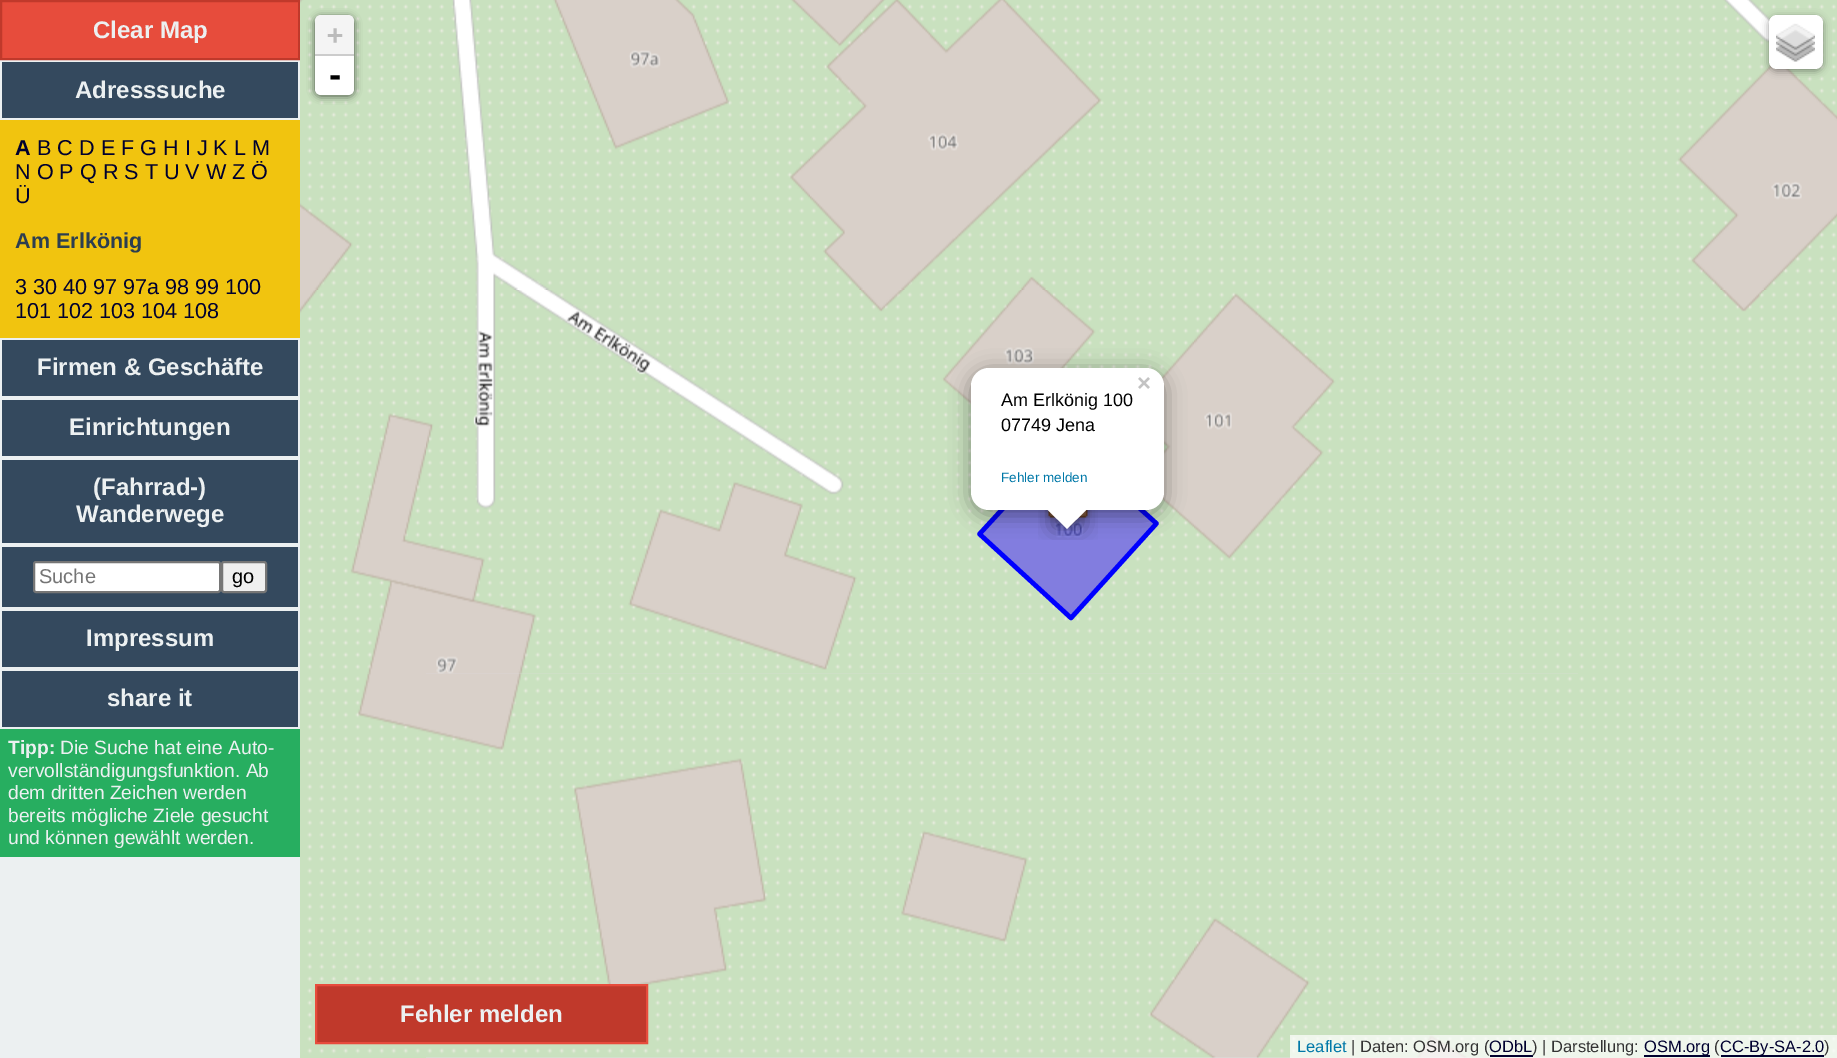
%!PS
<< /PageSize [1837 1058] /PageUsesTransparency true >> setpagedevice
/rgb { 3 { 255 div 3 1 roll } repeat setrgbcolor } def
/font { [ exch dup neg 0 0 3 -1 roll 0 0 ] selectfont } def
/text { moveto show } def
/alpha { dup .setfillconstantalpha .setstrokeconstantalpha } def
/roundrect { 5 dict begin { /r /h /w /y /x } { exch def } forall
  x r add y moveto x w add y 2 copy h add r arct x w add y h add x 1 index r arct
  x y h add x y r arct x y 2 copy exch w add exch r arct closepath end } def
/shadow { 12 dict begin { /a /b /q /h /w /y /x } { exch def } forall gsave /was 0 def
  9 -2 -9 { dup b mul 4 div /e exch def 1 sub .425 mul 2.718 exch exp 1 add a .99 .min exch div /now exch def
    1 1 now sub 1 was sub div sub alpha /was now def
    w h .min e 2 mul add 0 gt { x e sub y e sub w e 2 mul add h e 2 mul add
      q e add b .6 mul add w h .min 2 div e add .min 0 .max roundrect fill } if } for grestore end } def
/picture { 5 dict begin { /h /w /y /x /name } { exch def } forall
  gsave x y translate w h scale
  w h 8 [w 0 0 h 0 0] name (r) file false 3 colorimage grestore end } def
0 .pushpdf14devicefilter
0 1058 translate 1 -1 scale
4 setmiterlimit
236 240 241 rgb
0 0 1837 1058 rectfill
231 76 60 rgb
1 1 moveto 298 0 rlineto 0 58 rlineto -298 0 rlineto closepath gsave fill grestore
192 57 43 rgb
2 setlinewidth
stroke
52 73 94 rgb
2 62 296 56 rectfill
241 196 15 rgb
0 120 300 218 rectfill
52 73 94 rgb
2 340 296 56 rectfill
2 400 296 56 rectfill
2 460 296 83 rectfill
2 547 296 60 rectfill
255 255 255 rgb
34 562 186 30 2 roundrect gsave fill grestore
118 118 118 rgb
stroke
239 239 239 rgb
222 562 44 30 2 roundrect gsave fill grestore
118 118 118 rgb
stroke
52 73 94 rgb
2 611 296 56 rectfill
2 671 296 56 rectfill
39 174 96 rgb
0 729 300 128 rectfill
221 221 221 rgb
426 673 1152 385 rectfill
(img_02.rgb) 300 0 126 290 picture
0 0 0 rgb
315 17 39 79 6 4 0.65 shadow
244 244 244 rgb
321 15 moveto 27 0 rlineto 3.5 0 6 2.5 6 6 rcurveto 0 35 rlineto -39 0 rlineto 0 -35 rlineto 0 -3.5 2.5 -6 6 -6 rcurveto closepath fill
204 204 204 rgb
315 54 39 2 rectfill
255 255 255 rgb
315 56 moveto 39 0 rlineto 0 33 rlineto 0 3.5 -2.5 6 -6 6 rcurveto -27 0 rlineto -3.5 0 -6 -2.5 -6 -6 rcurveto closepath fill
(img_06.rgb) 1578 0 259 290 picture
0 0 0 rgb
1769 17 54 54 8 4 0.4 shadow
255 255 255 rgb
1769 15 54 54 8 roundrect fill
(img_01.rgb) 1776 23 39 39 picture
(img_10.rgb) 1194 290 384 384 picture
(img_15.rgb) 1194 673 384 385 picture
(img_16.rgb) 1578 674 259 384 picture
0.7 alpha
1290 1035 547 23 rectfill
1 alpha
0 0 47 rgb
1490 1055 43 2 rectfill
1644 1055 66 2 rectfill
1721 1055 103 2 rectfill
(img_03.rgb) 426 0 384 290 picture
(img_04.rgb) 810 0 384 290 picture
(img_05.rgb) 1194 0 384 290 picture
(img_07.rgb) 300 290 126 384 picture
(img_08.rgb) 426 290 384 384 picture
(img_09.rgb) 810 290 384 384 picture
(img_11.rgb) 1578 290 259 384 picture
(img_12.rgb) 300 674 126 384 picture
(img_13.rgb) 426 673 384 385 picture
(img_14.rgb) 810 673 384 385 picture
0.4 alpha
0 0 255 rgb
980 534 moveto 91 84 rlineto 85 -94 rlineto -91 -83 rlineto closepath eofill
1 alpha
4.5 setlinewidth
1 setlinecap
1 setlinejoin
979.5 534 moveto 91.5 84 rlineto 85.5 -94.5 rlineto -91.5 -82.5 rlineto closepath stroke
(img_17.rgb) 1044 510 48 20 picture
0 0 0 rgb
971 372 193 143 18 10.5 0.4 shadow
255 255 255 rgb
971 368 193 142 18 roundrect fill
gsave
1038 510 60 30 rectclip
0 0 0 rgb
1053 500 29 28 0 10.5 0.4 shadow
grestore
gsave
1038 510 60 30 rectclip
1067 489 moveto 20 20 rlineto -20 20 rlineto -20 -20 rlineto closepath fill
grestore
192 57 43 rgb
316 985 moveto 331 0 rlineto 0 58 rlineto -331 0 rlineto closepath gsave fill grestore
231 76 60 rgb
2 setlinewidth
0 setlinecap
0 setlinejoin
stroke
/LiberationSans-Bold 24 font
236 240 241 rgb
(Clear Map) 93 38 text
(Adresssuche) 75 98 text
/LiberationSans-Bold 21.6 font
0 0 47 rgb
(A) 15 155 text
/LiberationSans-Regular 21.6 font
(B C D E F G H I J K L M) 37 155 text
(N O P Q R S T U V W Z Ö) 15 179 text
(Ü) 15 203 text
/LiberationSans-Bold 21.6 font
44 62 80 rgb
(Am Erlkönig) 15 248 text
/LiberationSans-Regular 21.6 font
0 0 47 rgb
(3 30 40 97 97a 98 99 100) 15 294 text
(101 102 103 104 108) 15 318 text
/LiberationSans-Bold 24 font
236 240 241 rgb
(Firmen & Geschäfte) 37 375 text
(Einrichtungen) 69 435 text
(\(Fahrrad-\)) 93 495 text
(Wanderwege) 76 522 text
/LiberationSans-Regular 20 font
117 117 117 rgb
(Suche) 39 583 text
0 0 0 rgb
(go) 232 583 text
/LiberationSans-Bold 24 font
236 240 241 rgb
(Impressum) 86 646 text
(share it) 107 706 text
/LiberationSans-Bold 19.25 font
(Tipp:) 8 754 text
/LiberationSans-Regular 19.25 font
(Die Suche hat eine Auto-) 60 754 text
(vervollständigungsfunktion. Ab) 8 777 text
(dem dritten Zeichen werden) 8 799 text
(bereits mögliche Ziele gesucht) 8 822 text
(und können gewählt werden.) 8 844 text
/DejaVuSansMono-Bold 27 font
187 187 187 rgb
(+) 327 44 text
/DejaVuSansMono-Bold 30 font
0 0 0 rgb
(-) 326 86 text
/LiberationSans-Regular 16.5 font
0 120 168 rgb
(Leaflet) 1297 1052 text
51 51 51 rgb
(| Daten: OSM.org \() 1351 1052 text
0 0 47 rgb
(ODbL) 1489 1052 text
51 51 51 rgb
(\) | Darstellung:) 1532 1052 text
0 0 47 rgb
(OSM.org) 1644 1052 text
51 51 51 rgb
(\() 1714 1052 text
0 0 47 rgb
(CC-By-SA-2.0) 1720 1052 text
51 51 51 rgb
(\)) 1824 1052 text
/LiberationSans-Bold 24 font
195 195 195 rgb
(×) 1137 391 text
/LiberationSans-Regular 18 font
0 0 0 rgb
(Am Erlkönig 100) 1001 406 text
(07749 Jena) 1001 431 text
/LiberationSans-Regular 13.5 font
0 120 168 rgb
(Fehler melden) 1001 482 text
/LiberationSans-Bold 24 font
236 240 241 rgb
(Fehler melden) 400 1022 text
.poppdf14devicefilter showpage
